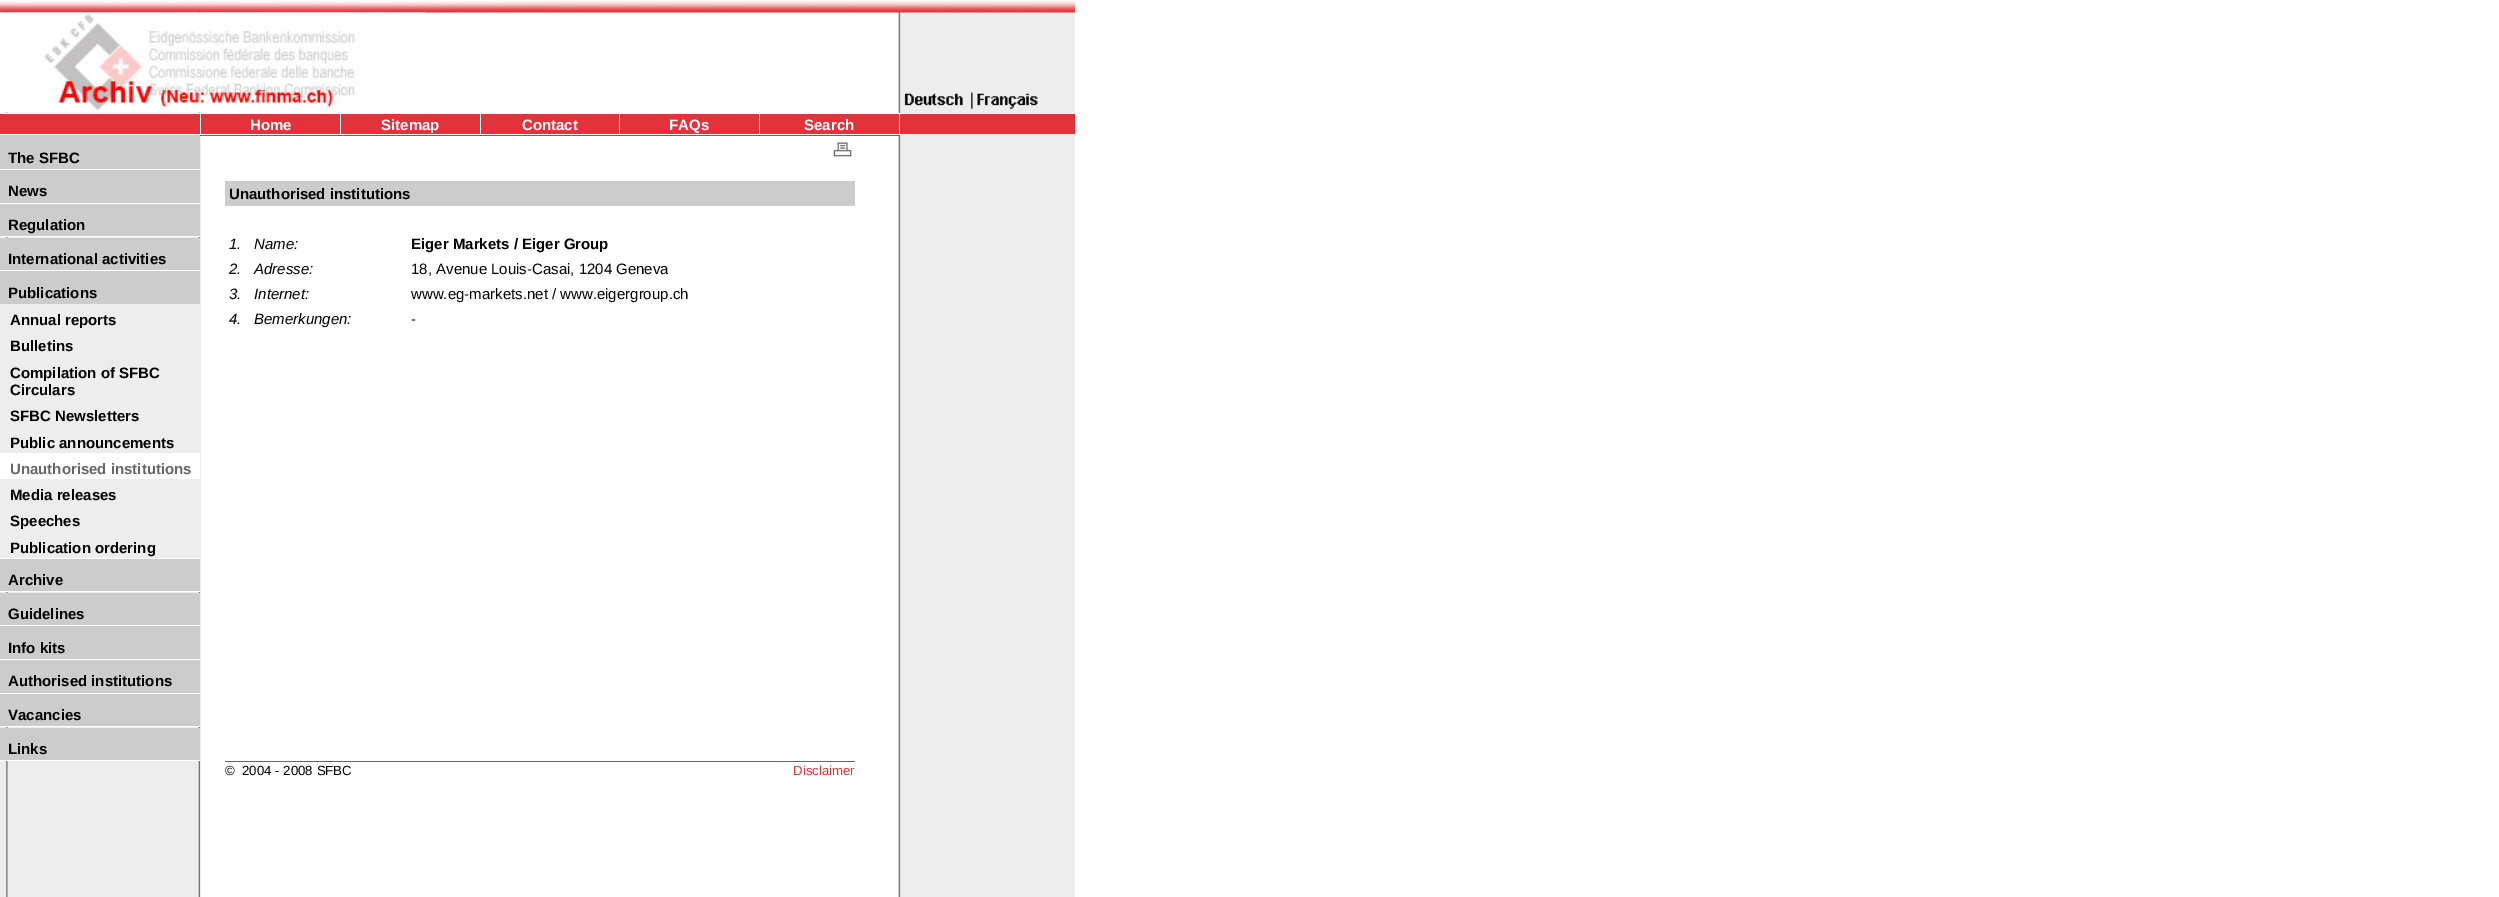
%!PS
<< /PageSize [2499 897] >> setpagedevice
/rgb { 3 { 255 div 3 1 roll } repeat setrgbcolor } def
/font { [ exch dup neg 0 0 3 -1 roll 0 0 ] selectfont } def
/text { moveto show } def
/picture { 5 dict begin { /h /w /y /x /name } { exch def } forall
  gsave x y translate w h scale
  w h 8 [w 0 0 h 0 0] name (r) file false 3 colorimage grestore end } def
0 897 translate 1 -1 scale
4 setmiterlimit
255 255 255 rgb
0 0 2499 897 rectfill
(img_01.rgb) 0 12 1075 885 picture
(img_02.rgb) 0 0 1075 13 picture
(img_03.rgb) 0 12 425 101 picture
(img_04.rgb) 904 93 59 13 picture
(img_05.rgb) 971 92 2 17 picture
(img_06.rgb) 977 93 61 16 picture
0 113 1075 1 rectfill
226 50 58 rgb
0 114 200 20 rectfill
255 255 255 rgb
200 114 1 20 rectfill
226 50 58 rgb
201 114 139 20 rectfill
341 114 139 20 rectfill
481 114 138 20 rectfill
620 114 139 20 rectfill
760 114 139 20 rectfill
255 255 255 rgb
899 114 1 20 rectfill
226 50 58 rgb
900 114 175 20 rectfill
255 255 255 rgb
0 134 900 1 rectfill
204 204 204 rgb
0 135 200 34 rectfill
102 102 102 rgb
200 135 700 1 rectfill
237 237 237 rgb
900 135 1 1 rectfill
255 255 255 rgb
0 169 200 1 rectfill
204 204 204 rgb
0 170 200 33 rectfill
255 255 255 rgb
0 203 200 1 rectfill
204 204 204 rgb
0 204 200 32 rectfill
255 255 255 rgb
0 236 200 1 rectfill
204 204 204 rgb
0 238 200 32 rectfill
255 255 255 rgb
0 270 200 1 rectfill
204 204 204 rgb
0 271 200 33 rectfill
237 237 237 rgb
6 304 2 149 rectfill
198 304 2 149 rectfill
255 255 255 rgb
0 453 200 26 rectfill
237 237 237 rgb
6 479 2 79 rectfill
198 479 2 79 rectfill
255 255 255 rgb
0 558 200 1 rectfill
204 204 204 rgb
0 559 200 32 rectfill
255 255 255 rgb
0 591 200 1 rectfill
204 204 204 rgb
0 593 200 32 rectfill
255 255 255 rgb
0 625 200 1 rectfill
204 204 204 rgb
0 626 200 33 rectfill
255 255 255 rgb
0 659 200 1 rectfill
204 204 204 rgb
0 660 200 33 rectfill
255 255 255 rgb
0 693 200 1 rectfill
204 204 204 rgb
0 694 200 32 rectfill
255 255 255 rgb
0 726 200 1 rectfill
204 204 204 rgb
0 728 200 32 rectfill
255 255 255 rgb
0 760 200 1 rectfill
(img_07.rgb) 833 142 19 15 picture
204 204 204 rgb
225 181 630 25 rectfill
102 102 102 rgb
225 761 630 1 rectfill
/LiberationSans-Bold 15 font
255 255 255 rgb
(Home) 250 130 text
(Sitemap) 381 130 text
(Contact) 522 130 text
(FAQs) 669 130 text
(Search) 804 130 text
0 0 0 rgb
(The SFBC) 8 163 text
(News) 8 196 text
(Regulation) 8 230 text
(International activities) 8 264 text
(Publications) 8 298 text
(Annual reports) 10 325 text
(Bulletins) 10 351 text
(Compilation of SFBC) 10 378 text
(Circulars) 10 395 text
(SFBC Newsletters) 10 421 text
(Public announcements) 10 448 text
102 102 102 rgb
(Unauthorised institutions) 10 474 text
0 0 0 rgb
(Media releases) 10 500 text
(Speeches) 10 526 text
(Publication ordering) 10 553 text
(Archive) 8 585 text
(Guidelines) 8 619 text
(Info kits) 8 653 text
(Authorised institutions) 8 686 text
(Vacancies) 8 720 text
(Links) 8 754 text
(Unauthorised institutions) 229 199 text
/LiberationSans-Italic 15 font
(1.) 229 249 text
(Name:) 254 249 text
/LiberationSans-Bold 15 font
(Eiger Markets / Eiger Group) 411 249 text
/LiberationSans-Italic 15 font
(2.) 229 274 text
(Adresse:) 254 274 text
/LiberationSans-Regular 15 font
(18, Avenue Louis-Casai, 1204 Geneva) 411 274 text
/LiberationSans-Italic 15 font
(3.) 229 299 text
(Internet:) 254 299 text
/LiberationSans-Regular 15 font
(www.eg-markets.net / www.eigergroup.ch) 411 299 text
/LiberationSans-Italic 15 font
(4.) 229 324 text
(Bemerkungen:) 254 324 text
/LiberationSans-Regular 15 font
(-) 411 324 text
/LiberationSans-Regular 13.25 font
(©  2004 - 2008 SFBC) 225 775 text
226 50 58 rgb
(Disclaimer) 793 775 text
showpage
